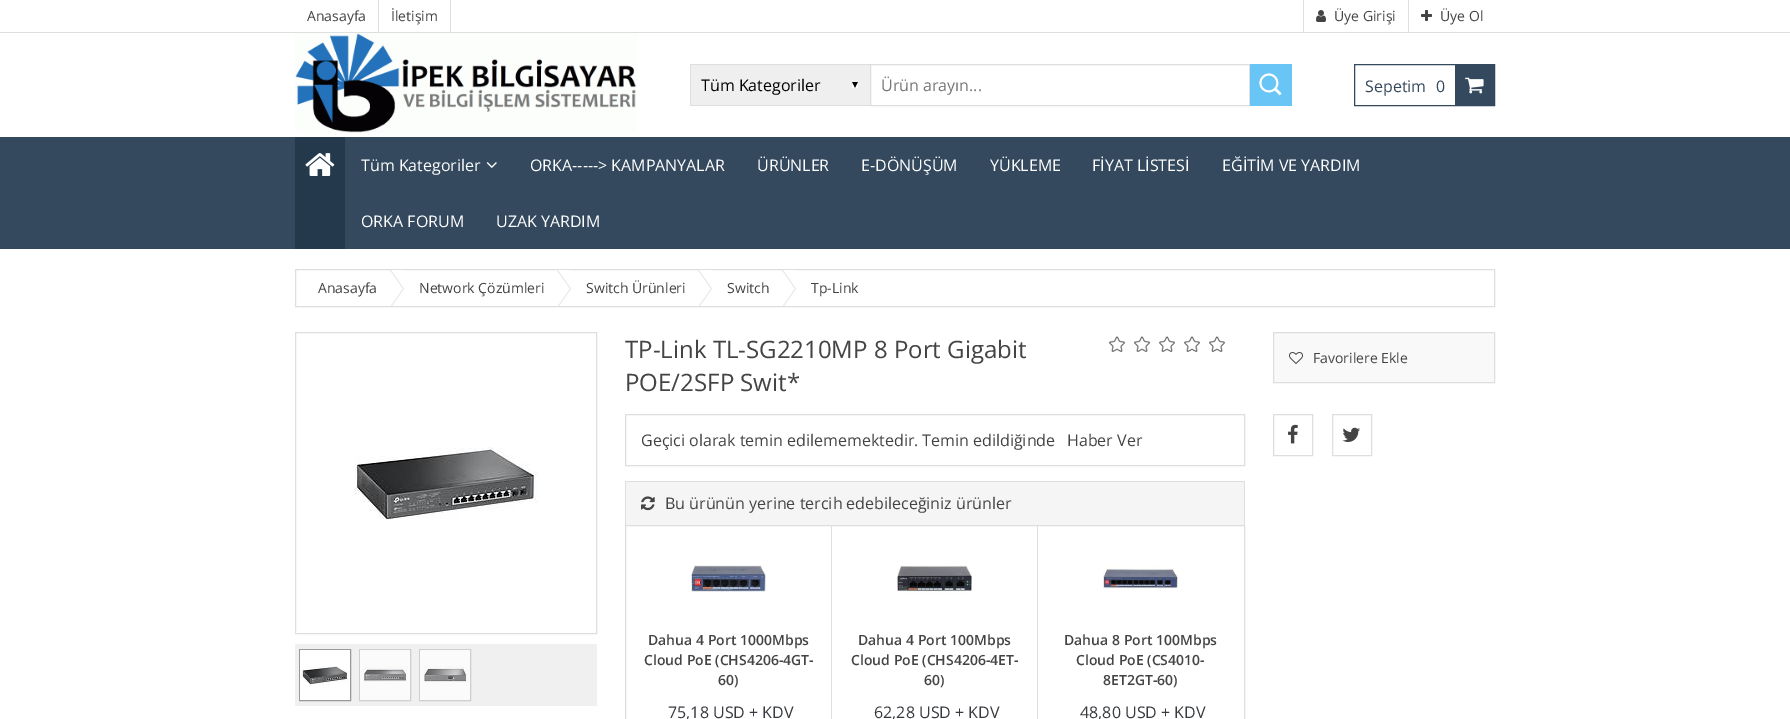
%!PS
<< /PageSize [1790 719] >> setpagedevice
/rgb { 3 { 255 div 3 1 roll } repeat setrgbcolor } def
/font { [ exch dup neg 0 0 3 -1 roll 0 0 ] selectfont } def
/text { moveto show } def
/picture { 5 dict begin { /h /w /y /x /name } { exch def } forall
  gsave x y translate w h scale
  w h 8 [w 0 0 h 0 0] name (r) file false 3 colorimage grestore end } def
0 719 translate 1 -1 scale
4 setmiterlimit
255 255 255 rgb
0 0 1790 719 rectfill
222 222 222 rgb
0 32 1790 1 rectfill
378 0 1 32 rectfill
450 0 1 32 rectfill
1303 0 1 32 rectfill
(img_01.rgb) 1316 10 10 12 picture
1408 0 1 32 rectfill
(img_02.rgb) 1421 10 11 11 picture
(img_03.rgb) 295 33 342 100 picture
239 239 239 rgb
691 65 179 40 rectfill
(img_04.rgb) 852 82 6 6 picture
222 222 222 rgb
690 64 180 1 rectfill
690 105 180 1 rectfill
690 64 1 42 rectfill
870.5 64.5 379 41 rectstroke
104 197 245 rgb
1250 64 42 42 rectfill
(img_05.rgb) 1259 73 23 23 picture
52 73 94 rgb
1354.5 64.5 140 41 rectstroke
1455 65 39 40 rectfill
(img_06.rgb) 1465 77 19 17 picture
0 137 1790 112 rectfill
37 57 77 rgb
295 137 50 112 rectfill
(img_07.rgb) 305 153 30 23 picture
(img_08.rgb) 486 162 11 6 picture
222 222 222 rgb
295.5 269.5 1199 37 rectstroke
(img_09.rgb) 390 270 14 36 picture
(img_09.rgb) 557 270 14 36 picture
(img_09.rgb) 698 270 14 36 picture
(img_09.rgb) 782 270 14 36 picture
295.5 332.5 301 301 rectstroke
(img_10.rgb) 354 447 184 73 picture
240 240 240 rgb
295 644 302 62 rectfill
153 153 153 rgb
299.5 649.5 51 51 rectstroke
(img_11.rgb) 300 650 50 50 picture
206 206 206 rgb
359.5 649.5 51 51 rectstroke
(img_12.rgb) 360 650 50 50 picture
419.5 649.5 51 51 rectstroke
(img_13.rgb) 420 650 50 50 picture
(img_14.rgb) 1109 336 116 16 picture
249 249 249 rgb
1273.5 332.5 moveto 221 0 rlineto 0 50 rlineto -221 0 rlineto closepath gsave fill grestore
222 222 222 rgb
stroke
(img_15.rgb) 1289 352 14 12 picture
625.5 414.5 619 51 rectstroke
245 245 245 rgb
626 482 618 43 rectfill
222 222 222 rgb
625 481 620 1 rectfill
1244 481 1 44 rectfill
625 481 1 44 rectfill
(img_16.rgb) 641 496 14 15 picture
625.5 525.5 619 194 rectstroke
831 526 1 193 rectfill
(img_17.rgb) 691 565 75 28 picture
1037 526 1 193 rectfill
(img_18.rgb) 897 565 75 30 picture
(img_19.rgb) 1103 565 75 24 picture
1273.5 414.5 39 41 rectstroke
(img_20.rgb) 1288 424 10 20 picture
1332.5 414.5 39 41 rectstroke
(img_21.rgb) 1342 427 18 15 picture
/OpenSans-Regular 14 font
68 68 68 rgb
(Anasayfa) 307 21 text
(İletişim) 391 21 text
(Üye Girişi) 1334 21 text
(Üye Ol) 1440 21 text
/OpenSans-Regular 16 font
0 0 0 rgb
(Tüm Kategoriler) 701 91 text
117 117 117 rgb
(Ürün arayın...) 881 91 text
52 73 94 rgb
(Sepetim) 1365 92 text
(0) 1436 92 text
255 255 255 rgb
(Tüm Kategoriler) 361 171 text
(ORKA-----> KAMPANYALAR) 530 171 text
(ÜRÜNLER) 757 171 text
(E-DÖNÜŞÜM) 861 171 text
(YÜKLEME) 990 171 text
(FİYAT LİSTESİ) 1092 171 text
(EĞİTİM VE YARDIM) 1222 171 text
(ORKA FORUM) 361 227 text
(UZAK YARDIM) 496 227 text
/OpenSans-Regular 14 font
68 68 68 rgb
(Anasayfa) 318 293 text
(Network Çözümleri) 419 293 text
(Switch Ürünleri) 586 293 text
(Switch) 727 293 text
(Tp-Link) 811 293 text
/OpenSans-Regular 24 font
(TP-Link TL-SG2210MP 8 Port Gigabit) 625 358 text
(POE/2SFP Swit*) 625 391 text
/OpenSans-Regular 14 font
(Favorilere Ekle) 1313 363 text
/OpenSans-Regular 16 font
(Geçici olarak temin edilememektedir. Temin edildiğinde) 641 446 text
(Haber Ver) 1067 446 text
(Bu ürünün yerine tercih edebileceğiniz ürünler) 665 509 text
/OpenSans-SemiBold 14 font
(Dahua 4 Port 1000Mbps) 648 645 text
(Cloud PoE \(CHS4206-4GT-) 644 665 text
(60\)) 718 685 text
/OpenSans-Regular 16 font
55 58 63 rgb
(75,18 USD + KDV) 668 718 text
/OpenSans-SemiBold 14 font
68 68 68 rgb
(Dahua 4 Port 100Mbps) 858 645 text
(Cloud PoE \(CHS4206-4ET-) 851 665 text
(60\)) 924 685 text
/OpenSans-Regular 16 font
55 58 63 rgb
(62,28 USD + KDV) 874 718 text
/OpenSans-SemiBold 14 font
68 68 68 rgb
(Dahua 8 Port 100Mbps) 1064 645 text
(Cloud PoE \(CS4010-) 1076 665 text
(8ET2GT-60\)) 1103 685 text
/OpenSans-Regular 16 font
55 58 63 rgb
(48,80 USD + KDV) 1080 718 text
showpage
